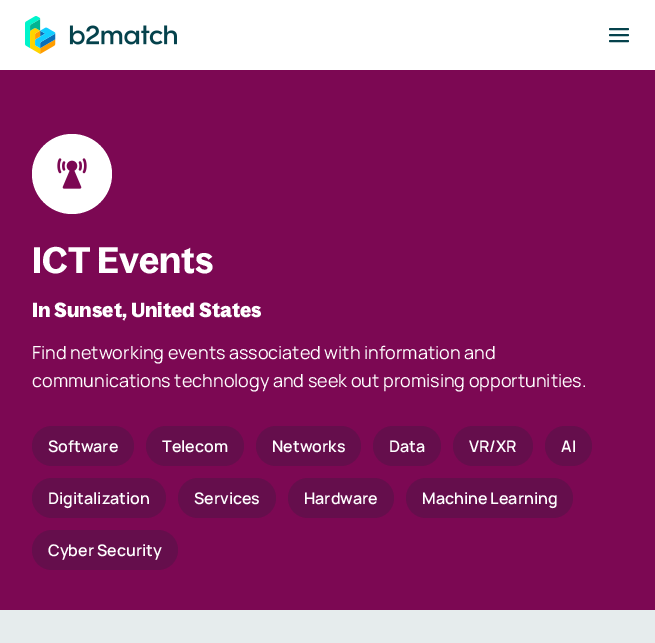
%!PS
<< /PageSize [655 643] >> setpagedevice
/rgb { 3 { 255 div 3 1 roll } repeat setrgbcolor } def
/font { [ exch dup neg 0 0 3 -1 roll 0 0 ] selectfont } def
/text { moveto show } def
/circle { newpath 0 360 arc closepath } def
/roundrect { 5 dict begin { /r /h /w /y /x } { exch def } forall
  x r add y moveto x w add y 2 copy h add r arct x w add y h add x 1 index r arct
  x y h add x y r arct x y 2 copy exch w add exch r arct closepath end } def
/picture { 5 dict begin { /h /w /y /x /name } { exch def } forall
  gsave x y translate w h scale
  w h 8 [w 0 0 h 0 0] name (r) file false 3 colorimage grestore end } def
0 643 translate 1 -1 scale
4 setmiterlimit
255 255 255 rgb
0 0 655 643 rectfill
(img_01.rgb) 25 16 152 38 picture
5 66 76 rgb
2 setlinewidth
1 setlinecap
1 setlinejoin
610 35 moveto 18 0 rlineto 610 29 moveto 18 0 rlineto 610 41 moveto 18 0 rlineto stroke
124 8 83 rgb
0 70 655 540 rectfill
255 255 255 rgb
72 174 40 circle fill
(img_02.rgb) 57 158 30 31 picture
101 14 76 rgb
32 426 102 40 20 roundrect fill
146 426 98 40 20 roundrect fill
256 426 105 40 20 roundrect fill
373 426 68 40 20 roundrect fill
453 426 80 40 20 roundrect fill
545 426 47 40 20 roundrect fill
32 478 134 40 20 roundrect fill
178 478 98 40 20 roundrect fill
288 478 106 40 20 roundrect fill
406 478 167 40 20 roundrect fill
32 530 146 40 20 roundrect fill
230 236 237 rgb
0 610 655 33 rectfill
/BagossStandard-SemiBold 36 font
255 255 255 rgb
(ICT Events) 32 273 text
/BagossStandard-Bold 20 font
(In Sunset, United States) 32 317 text
/Manrope-Regular 18 font
(Find networking events associated with information and) 32 359 text
(communications technology and seek out promising opportunities.) 32 387 text
/Manrope-SemiBold 16 font
(Software) 48 452 text
(Telecom) 162 452 text
(Networks) 272 452 text
(Data) 389 452 text
(VR/XR) 469 452 text
(AI) 561 452 text
(Digitalization) 48 504 text
(Services) 194 504 text
(Hardware) 304 504 text
(Machine Learning) 422 504 text
(Cyber Security) 48 556 text
showpage
